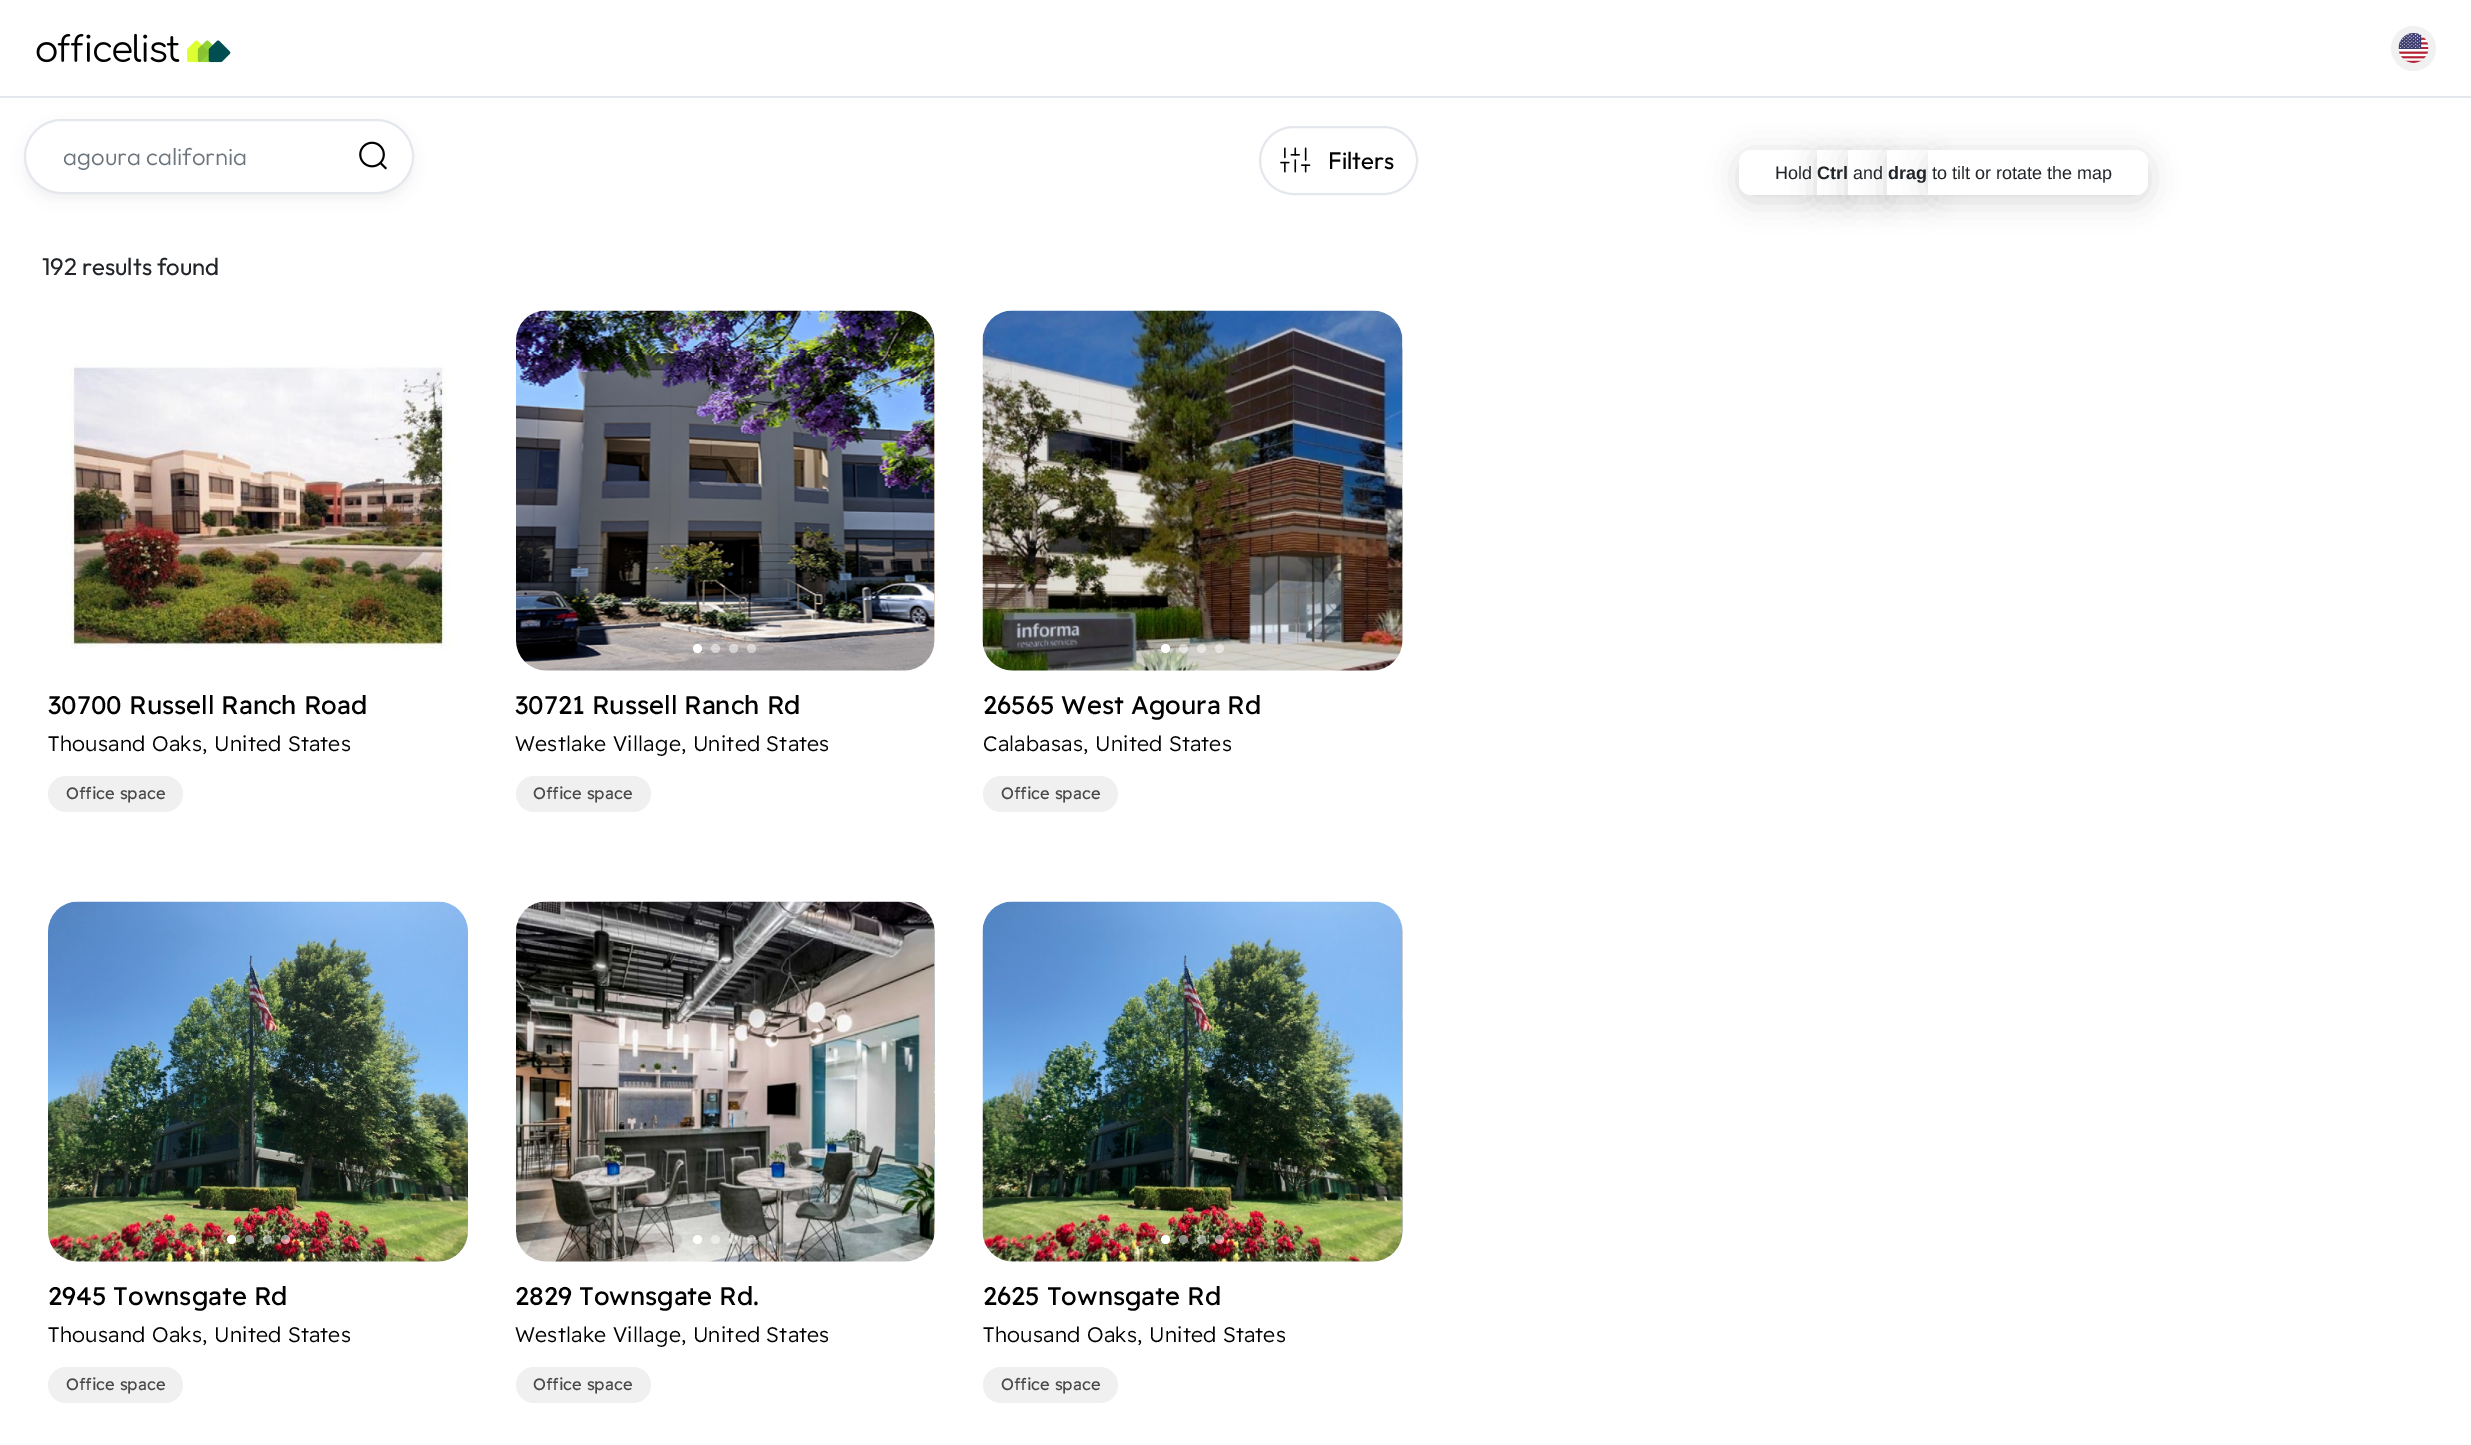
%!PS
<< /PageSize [2471 1445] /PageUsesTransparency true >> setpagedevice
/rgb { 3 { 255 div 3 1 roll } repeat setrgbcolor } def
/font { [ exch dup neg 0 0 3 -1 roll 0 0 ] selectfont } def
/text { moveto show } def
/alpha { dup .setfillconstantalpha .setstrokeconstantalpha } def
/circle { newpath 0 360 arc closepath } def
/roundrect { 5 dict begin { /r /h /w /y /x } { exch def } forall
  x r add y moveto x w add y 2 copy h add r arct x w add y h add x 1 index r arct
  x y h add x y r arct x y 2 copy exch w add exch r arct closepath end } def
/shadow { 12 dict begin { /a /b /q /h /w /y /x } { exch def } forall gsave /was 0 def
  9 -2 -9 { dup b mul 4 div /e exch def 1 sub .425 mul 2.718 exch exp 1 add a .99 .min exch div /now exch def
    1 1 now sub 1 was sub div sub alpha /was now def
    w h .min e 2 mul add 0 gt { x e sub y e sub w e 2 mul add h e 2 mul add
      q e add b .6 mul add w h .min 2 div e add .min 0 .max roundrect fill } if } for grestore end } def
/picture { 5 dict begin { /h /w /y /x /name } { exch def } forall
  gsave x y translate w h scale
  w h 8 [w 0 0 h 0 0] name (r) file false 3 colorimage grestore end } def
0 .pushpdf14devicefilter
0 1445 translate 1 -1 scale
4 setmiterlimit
255 255 255 rgb
0 0 2471 1445 rectfill
228 232 237 rgb
0 96 2471 2 rectfill
(img_01.rgb) 36 33 195 30 picture
241 241 241 rgb
2413.5 48.5 22.5 circle fill
(img_02.rgb) 2398 33 31 30 picture
0 0 0 rgb
27 128 384 69 34.5 7.5 0.07 shadow
255 255 255 rgb
25 120 388 73 36.5 roundrect gsave fill grestore
228 232 237 rgb
2 setlinewidth
stroke
(img_03.rgb) 359 141 28 29 picture
(img_04.rgb) 1280 147 31 26 picture
1260 127 157 67 33.5 roundrect stroke
(img_05.rgb) 64 363 387 286 picture
255 255 255 rgb
231.5 648.5 4.5 circle fill
0.5 alpha
249.5 648.5 4.5 circle fill
267.5 648.5 4.5 circle fill
285.5 648.5 4.5 circle fill
1 alpha
240 240 240 rgb
48 776 135 36 18 roundrect fill
(img_06.rgb) 516 310 419 361 picture
(img_07.rgb) 934 335 1 310 picture
255 255 255 rgb
697.5 648.5 4.5 circle fill
0.5 alpha
715.5 648.5 4.5 circle fill
733.5 648.5 4.5 circle fill
751.5 648.5 4.5 circle fill
1 alpha
240 240 240 rgb
516 776 135 36 18 roundrect fill
(img_08.rgb) 982 310 421 361 picture
(img_09.rgb) 1402 338 1 307 picture
255 255 255 rgb
1165.5 648.5 4.5 circle fill
0.5 alpha
1183.5 648.5 4.5 circle fill
1201.5 648.5 4.5 circle fill
1219.5 648.5 4.5 circle fill
1 alpha
240 240 240 rgb
983 776 135 36 18 roundrect fill
(img_10.rgb) 48 901 420 361 picture
255 255 255 rgb
231.5 1239.5 4.5 circle fill
0.5 alpha
249.5 1239.5 4.5 circle fill
267.5 1239.5 4.5 circle fill
285.5 1239.5 4.5 circle fill
1 alpha
240 240 240 rgb
48 1367 135 36 18 roundrect fill
(img_11.rgb) 516 901 419 361 picture
(img_12.rgb) 934 926 1 310 picture
255 255 255 rgb
697.5 1239.5 4.5 circle fill
0.5 alpha
715.5 1239.5 4.5 circle fill
733.5 1239.5 4.5 circle fill
751.5 1239.5 4.5 circle fill
1 alpha
240 240 240 rgb
516 1367 135 36 18 roundrect fill
(img_13.rgb) 982 901 421 361 picture
(img_14.rgb) 1402 926 1 310 picture
255 255 255 rgb
1165.5 1239.5 4.5 circle fill
0.5 alpha
1183.5 1239.5 4.5 circle fill
1201.5 1239.5 4.5 circle fill
1219.5 1239.5 4.5 circle fill
1 alpha
240 240 240 rgb
983 1367 135 36 18 roundrect fill
0 0 0 rgb
1739 156 78 45 12 15 0.15 shadow
255 255 255 rgb
1751 150 moveto 66 0 rlineto 0 45 rlineto -66 0 rlineto -6.5 0 -12 -5.5 -12 -12 rcurveto 0 -21 rlineto 0 -6.5 5.5 -12 12 -12 rcurveto closepath fill
0 0 0 rgb
1817 156 31 45 0 15 0.15 shadow
255 255 255 rgb
1817 150 31 45 rectfill
0 0 0 rgb
1848 156 39 45 0 15 0.15 shadow
255 255 255 rgb
1848 150 39 45 rectfill
0 0 0 rgb
1887 156 41 45 0 15 0.15 shadow
255 255 255 rgb
1887 150 41 45 rectfill
0 0 0 rgb
1928 156 220 45 12 15 0.15 shadow
255 255 255 rgb
1928 150 moveto 208 0 rlineto 6.5 0 12 5.5 12 12 rcurveto 0 21 rlineto 0 6.5 -5.5 12 -12 12 rcurveto -208 0 rlineto closepath fill
/Outfit-Light 24 font
108 117 125 rgb
(agoura california) 63 165 text
/Outfit-Regular 24 font
0 0 0 rgb
(Filters) 1328 169 text
33 37 41 rgb
(192 results found) 42 275 text
/ReadexPro-Regular 25.5 font
0 0 0 rgb
(30700 Russell Ranch Road) 48 714 text
/ReadexPro-Light 21 font
48 751 moveto 0.3 0 (Thousand Oaks, United States) ashow
/ReadexPro-Regular 16.5 font
72 72 72 rgb
(Office space) 66 799 text
/ReadexPro-Regular 25.5 font
0 0 0 rgb
(30721 Russell Ranch Rd) 515 714 text
/ReadexPro-Light 21 font
515 751 moveto 0.3 0 (Westlake Village, United States) ashow
/ReadexPro-Regular 16.5 font
72 72 72 rgb
(Office space) 533 799 text
/ReadexPro-Regular 25.5 font
0 0 0 rgb
(26565 West Agoura Rd) 983 714 text
/ReadexPro-Light 21 font
983 751 moveto 0.3 0 (Calabasas, United States) ashow
/ReadexPro-Regular 16.5 font
72 72 72 rgb
(Office space) 1001 799 text
/ReadexPro-Regular 25.5 font
0 0 0 rgb
(2945 Townsgate Rd) 48 1305 text
/ReadexPro-Light 21 font
48 1342 moveto 0.3 0 (Thousand Oaks, United States) ashow
/ReadexPro-Regular 16.5 font
72 72 72 rgb
(Office space) 66 1390 text
/ReadexPro-Regular 25.5 font
0 0 0 rgb
(2829 Townsgate Rd.) 515 1305 text
/ReadexPro-Light 21 font
515 1342 moveto 0.3 0 (Westlake Village, United States) ashow
/ReadexPro-Regular 16.5 font
72 72 72 rgb
(Office space) 533 1390 text
/ReadexPro-Regular 25.5 font
0 0 0 rgb
(2625 Townsgate Rd) 983 1305 text
/ReadexPro-Light 21 font
983 1342 moveto 0.3 0 (Thousand Oaks, United States) ashow
/ReadexPro-Regular 16.5 font
72 72 72 rgb
(Office space) 1001 1390 text
/LiberationSans-Regular 18 font
33 37 41 rgb
(Hold) 1775 179 text
/LiberationSans-Bold 18 font
(Ctrl) 1817 179 text
/LiberationSans-Regular 18 font
(and) 1853 179 text
/LiberationSans-Bold 18 font
(drag) 1888 179 text
/LiberationSans-Regular 18 font
(to tilt or rotate the map) 1932 179 text
.poppdf14devicefilter showpage
